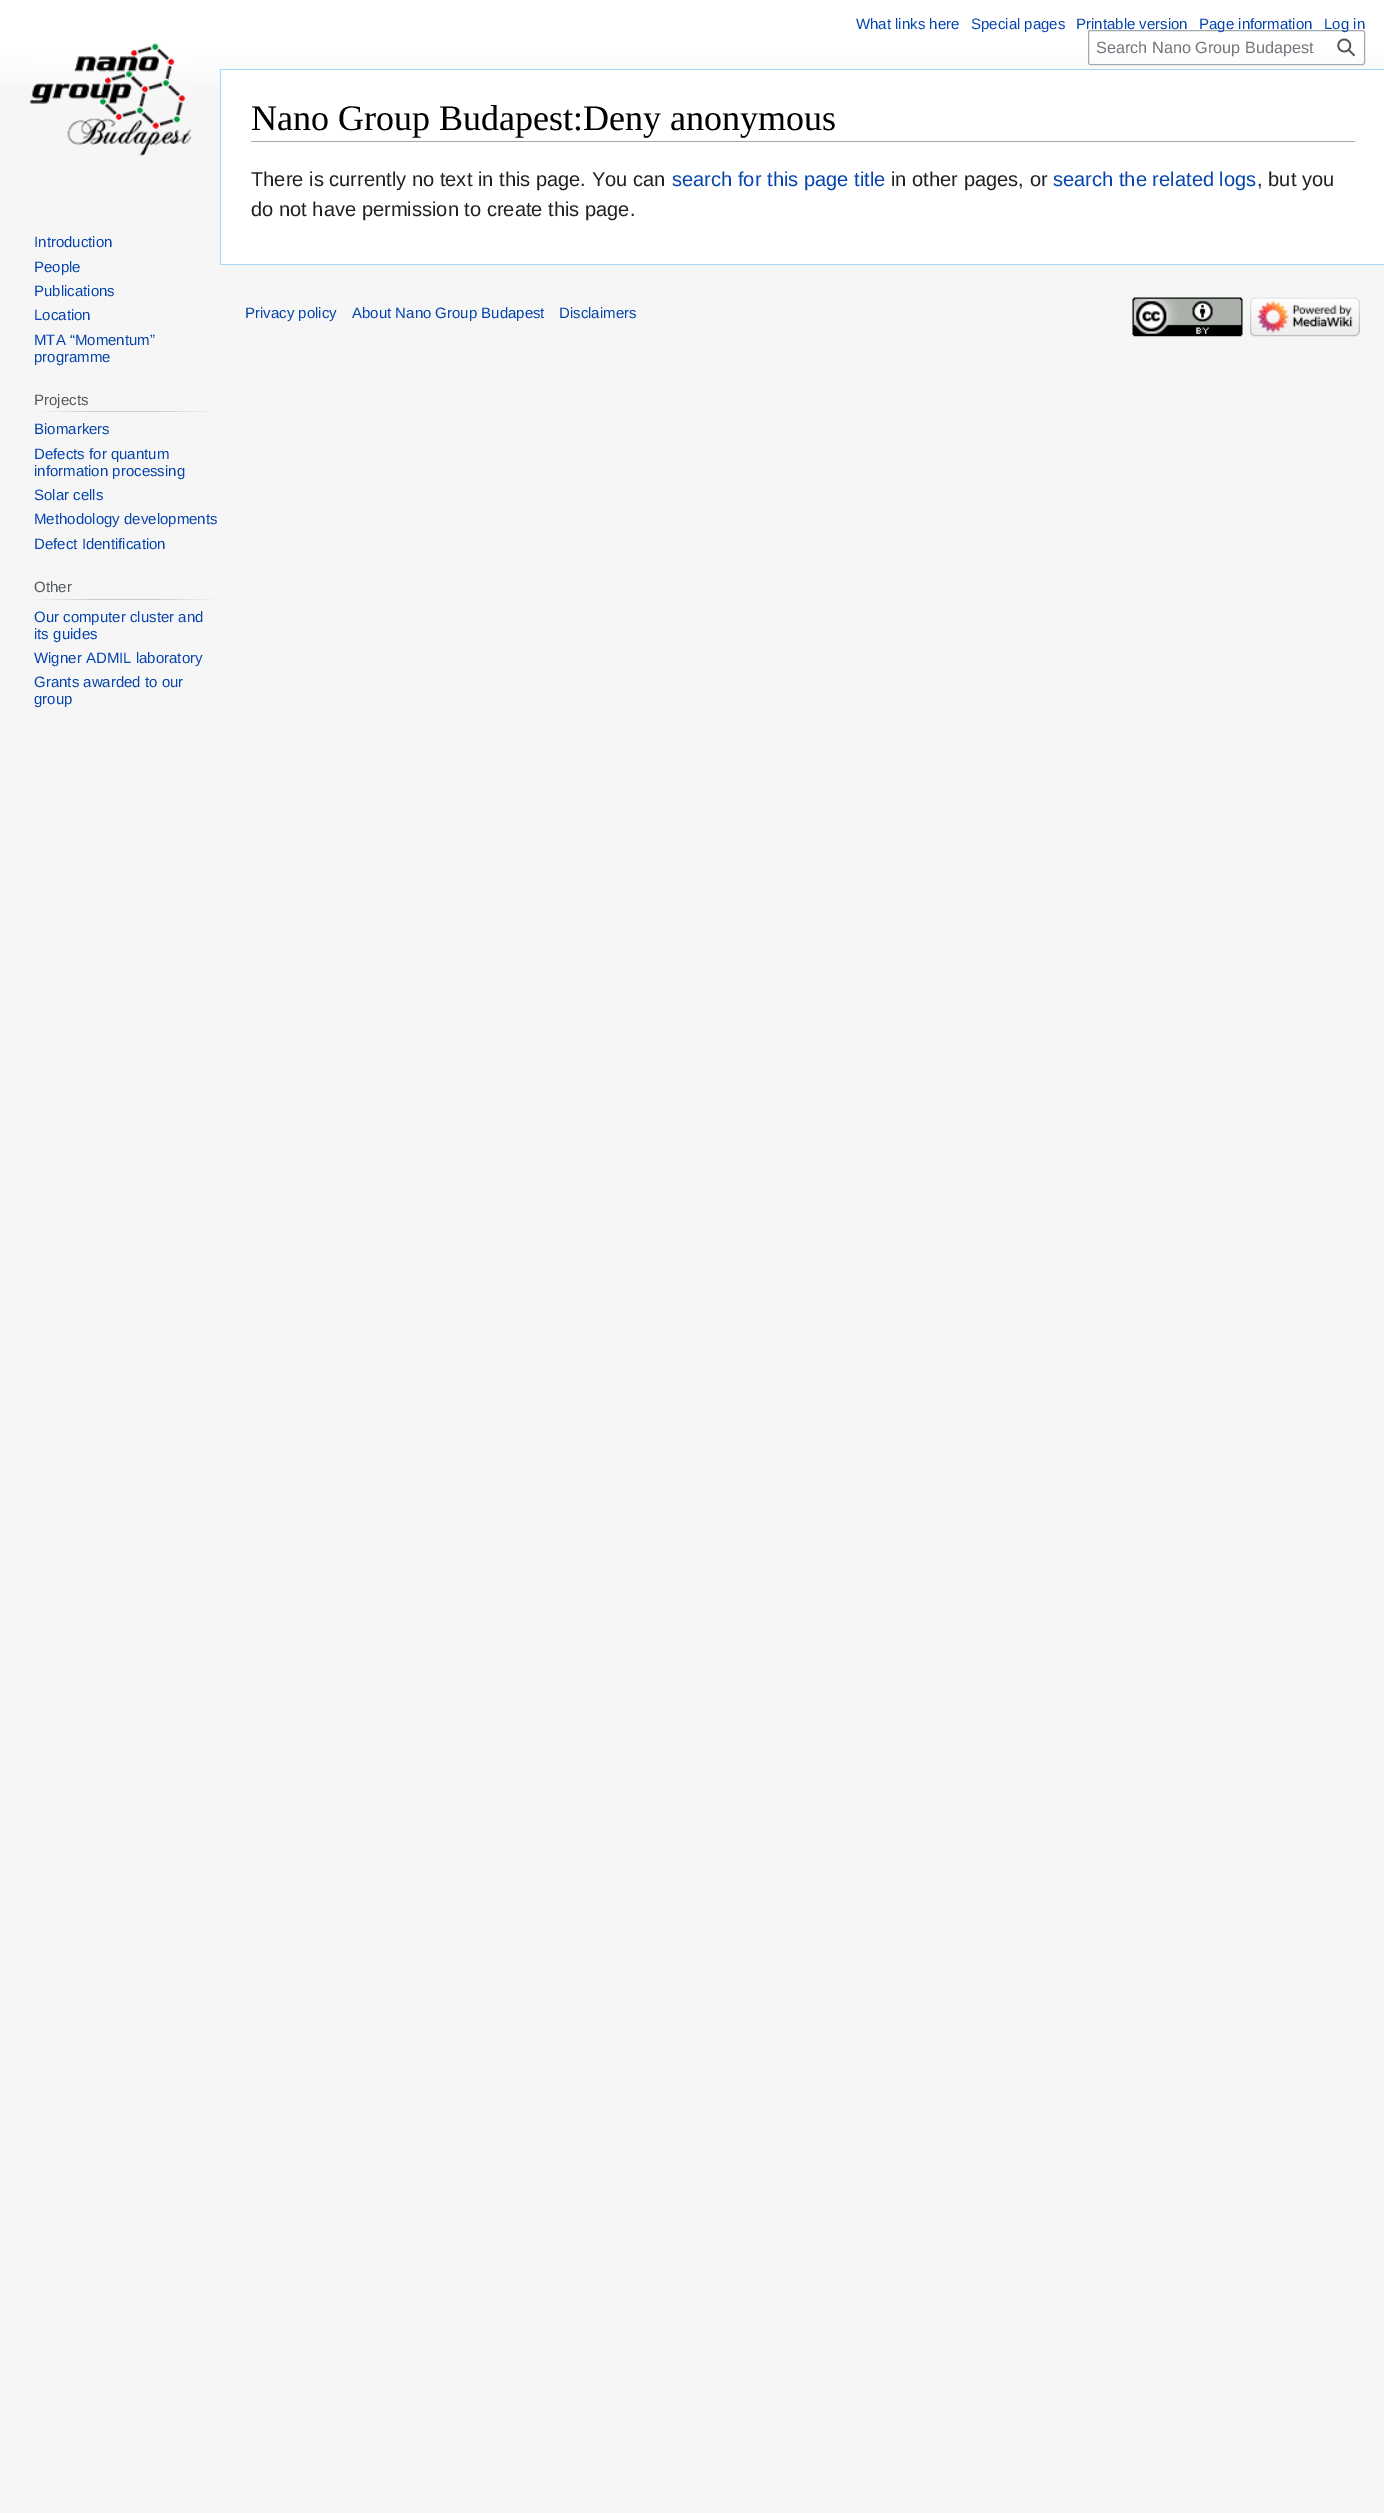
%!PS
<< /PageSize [1384 2513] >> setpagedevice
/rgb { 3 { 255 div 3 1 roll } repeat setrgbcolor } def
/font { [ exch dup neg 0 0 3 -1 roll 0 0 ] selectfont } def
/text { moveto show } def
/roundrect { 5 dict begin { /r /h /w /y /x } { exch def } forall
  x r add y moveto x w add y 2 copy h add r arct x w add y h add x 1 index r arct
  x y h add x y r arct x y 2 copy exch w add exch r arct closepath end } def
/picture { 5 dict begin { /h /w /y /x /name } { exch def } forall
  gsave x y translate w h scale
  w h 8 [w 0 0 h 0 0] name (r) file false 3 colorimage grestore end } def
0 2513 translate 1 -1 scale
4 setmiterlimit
246 246 246 rgb
0 0 1384 2513 rectfill
gsave 0 0 moveto 1384 0 rlineto 0 86 rlineto -1384 0 rlineto closepath clip newpath
<< /ShadingType 2 /ColorSpace /DeviceRGB /Coords [693 0 693 100] /Extend [true true] /Function << /FunctionType 3 /Domain [0 1] /Functions [<< /FunctionType 2 /Domain [0 1] /C0 [1 1 1] /C1 [1 1 1] /N 1 >> << /FunctionType 2 /Domain [0 1] /C0 [1 1 1] /C1 [0.965 0.965 0.965] /N 1 >>] /Bounds [0.5] /Encode [0 1 0 1] >> >> shfill grestore
162 169 177 rgb
1088.5 30.5 276 34 2 roundrect stroke
(img_01.rgb) 1337 38 19 19 picture
(img_02.rgb) 29 43 163 114 picture
gsave 34 411 moveto 184 0 rlineto 0 1 rlineto -184 0 rlineto closepath clip newpath
<< /ShadingType 2 /ColorSpace /DeviceRGB /Coords [34 412 218 412] /Extend [true true] /Function << /FunctionType 3 /Domain [0 1] /Functions [<< /FunctionType 2 /Domain [0 1] /C0 [0.965 0.965 0.965] /C1 [0.784 0.8 0.82] /N 1 >> << /FunctionType 2 /Domain [0 1] /C0 [0.784 0.8 0.82] /C1 [0.784 0.8 0.82] /N 1 >> << /FunctionType 2 /Domain [0 1] /C0 [0.784 0.8 0.82] /C1 [0.965 0.965 0.965] /N 1 >>] /Bounds [0.33 0.66] /Encode [0 1 0 1 0 1] >> >> shfill grestore
gsave 34 599 moveto 184 0 rlineto 0 1 rlineto -184 0 rlineto closepath clip newpath
<< /ShadingType 2 /ColorSpace /DeviceRGB /Coords [34 599 218 599] /Extend [true true] /Function << /FunctionType 3 /Domain [0 1] /Functions [<< /FunctionType 2 /Domain [0 1] /C0 [0.965 0.965 0.965] /C1 [0.784 0.8 0.82] /N 1 >> << /FunctionType 2 /Domain [0 1] /C0 [0.784 0.8 0.82] /C1 [0.784 0.8 0.82] /N 1 >> << /FunctionType 2 /Domain [0 1] /C0 [0.784 0.8 0.82] /C1 [0.965 0.965 0.965] /N 1 >>] /Bounds [0.33 0.66] /Encode [0 1 0 1 0 1] >> >> shfill grestore
255 255 255 rgb
221 70 1163 194 rectfill
167 215 249 rgb
220 69 1164 1 rectfill
220 264 1164 1 rectfill
220 69 1 196 rectfill
162 169 177 rgb
251 141 1104 1 rectfill
(img_03.rgb) 1132 297 111 40 picture
(img_04.rgb) 1250 297 110 40 picture
/LiberationSans-Regular 15 font
6 69 173 rgb
(What links here) 856 29 text
(Special pages) 971 29 text
(Printable version) 1076 29 text
(Page information) 1199 29 text
(Log in) 1324 29 text
/LiberationSans-Regular 16.25 font
114 119 125 rgb
(Search Nano Group Budapest) 1096 53 text
/LiberationSans-Regular 15 font
6 69 173 rgb
(Introduction) 34 247 text
(People) 34 272 text
(Publications) 34 296 text
(Location) 34 320 text
(MTA “Momentum”) 34 345 text
(programme) 34 362 text
84 89 93 rgb
(Projects) 34 405 text
6 69 173 rgb
(Biomarkers) 34 434 text
(Defects for quantum) 34 459 text
(information processing) 34 476 text
(Solar cells) 34 500 text
(Methodology developments) 34 524 text
(Defect Identification) 34 549 text
84 89 93 rgb
(Other) 34 592 text
6 69 173 rgb
(Our computer cluster and) 34 622 text
(its guides) 34 639 text
(Wigner ADMIL laboratory) 34 663 text
(Grants awarded to our) 34 687 text
(group) 34 704 text
/LiberationSerif-Regular 36 font
0 0 0 rgb
(Nano Group Budapest:Deny anonymous) 251 130 text
/LiberationSans-Regular 20.1 font
32 33 34 rgb
(There is currently no text in this page. You can) 251 186 text
6 69 173 rgb
(search for this page title) 672 186 text
32 33 34 rgb
(in other pages, or) 891 186 text
6 69 173 rgb
(search the related logs) 1053 186 text
32 33 34 rgb
(, but you) 1257 186 text
(do not have permission to create this page.) 251 216 text
/LiberationSans-Regular 15 font
6 69 173 rgb
(Privacy policy) 245 318 text
(About Nano Group Budapest) 352 318 text
(Disclaimers) 559 318 text
showpage
